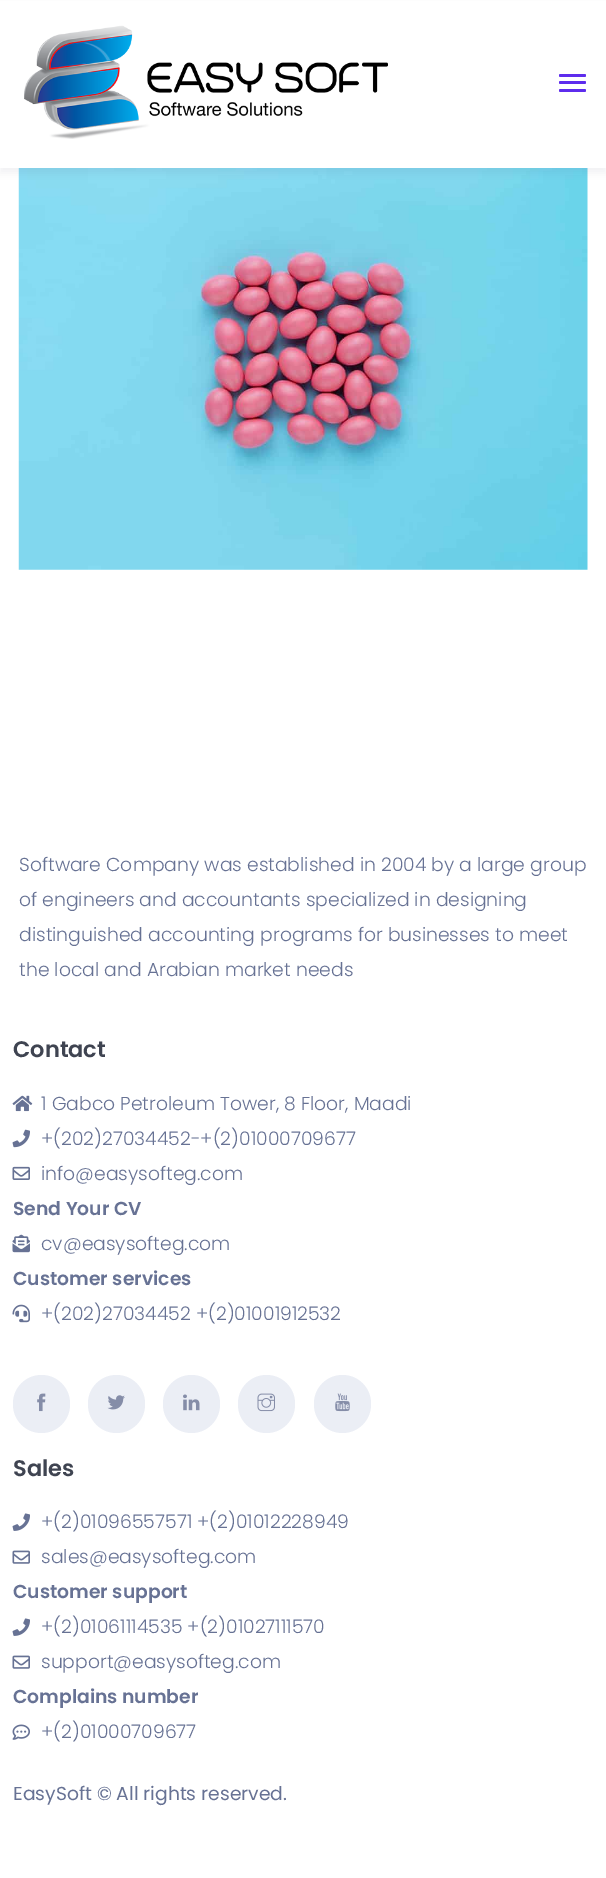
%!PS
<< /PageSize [606 1878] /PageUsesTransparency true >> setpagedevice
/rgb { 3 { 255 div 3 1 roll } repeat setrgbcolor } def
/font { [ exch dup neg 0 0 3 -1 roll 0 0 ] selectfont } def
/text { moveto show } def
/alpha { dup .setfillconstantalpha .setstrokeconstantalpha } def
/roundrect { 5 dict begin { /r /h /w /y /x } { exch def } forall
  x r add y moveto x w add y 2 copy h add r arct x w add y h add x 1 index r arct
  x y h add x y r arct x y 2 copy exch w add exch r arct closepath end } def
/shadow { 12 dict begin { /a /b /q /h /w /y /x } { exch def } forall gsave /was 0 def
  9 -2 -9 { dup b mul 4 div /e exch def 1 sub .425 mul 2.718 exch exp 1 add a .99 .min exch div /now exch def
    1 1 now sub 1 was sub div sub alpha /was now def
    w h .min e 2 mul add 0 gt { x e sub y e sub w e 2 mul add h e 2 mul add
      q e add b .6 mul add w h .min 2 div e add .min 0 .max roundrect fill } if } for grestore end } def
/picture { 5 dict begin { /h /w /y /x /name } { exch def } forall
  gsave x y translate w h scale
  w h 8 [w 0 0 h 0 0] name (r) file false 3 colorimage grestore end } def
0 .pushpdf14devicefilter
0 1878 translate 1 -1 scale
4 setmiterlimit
255 255 255 rgb
0 0 606 1878 rectfill
(img_02.rgb) 18 168 570 402 picture
12 0 46 rgb
0 5 606 168 0 4 0.06 shadow
255 255 255 rgb
0 1 606 167 rectfill
(img_01.rgb) 24 25 364 114 picture
94 44 237 rgb
559 74 27 3 1.5 roundrect fill
559 81 27 3 1.5 roundrect fill
559 89 27 3 1.5 roundrect fill
(img_03.rgb) 12 1095 21 17 picture
(img_04.rgb) 12 1129 18 19 picture
(img_05.rgb) 12 1166 18 14 picture
(img_06.rgb) 12 1234 18 19 picture
(img_07.rgb) 12 1304 18 19 picture
235 238 245 rgb
13 1375 57 58 28.5 roundrect fill
(img_08.rgb) 37 1393 9 19 picture
88 1375 57 58 28.5 roundrect fill
(img_09.rgb) 107 1395 18 15 picture
163 1375 57 58 28.5 roundrect fill
(img_10.rgb) 183 1394 17 17 picture
238 1375 57 58 28.5 roundrect fill
(img_11.rgb) 257 1393 18 19 picture
314 1375 57 58 28.5 roundrect fill
(img_12.rgb) 335 1393 15 19 picture
(img_13.rgb) 12 1513 18 18 picture
(img_14.rgb) 12 1550 18 14 picture
(img_13.rgb) 12 1618 18 18 picture
(img_14.rgb) 12 1655 18 14 picture
(img_15.rgb) 12 1724 18 16 picture
/Poppins-Light 18.75 font
103 114 148 rgb
(Software Company was established in 2004 by a large group) 19 871 text
(of engineers and accountants specialized in designing) 19 906 text
(distinguished accounting programs for businesses to meet) 19 941 text
(the local and Arabian market needs) 19 976 text
/Poppins-SemiBold 22.5 font
63 68 81 rgb
(Contact) 13 1057 text
/Poppins-Light 18.75 font
103 114 148 rgb
(1 Gabco Petroleum Tower, 8 Floor, Maadi) 41 1110 text
(+\(202\)27034452-+\(2\)01000709677) 41 1145 text
(info@easysofteg.com) 41 1180 text
/Poppins-SemiBold 18.75 font
(Send Your CV) 13 1215 text
/Poppins-Light 18.75 font
(cv@easysofteg.com) 41 1250 text
/Poppins-SemiBold 18.75 font
(Customer services) 13 1285 text
/Poppins-Light 18.75 font
(+\(202\)27034452 +\(2\)01001912532) 41 1320 text
/Poppins-SemiBold 22.5 font
63 68 81 rgb
(Sales) 13 1476 text
/Poppins-Light 18.75 font
103 114 148 rgb
(+\(2\)01096557571 +\(2\)01012228949) 41 1528 text
(sales@easysofteg.com) 41 1563 text
/Poppins-SemiBold 18.75 font
(Customer support) 13 1598 text
/Poppins-Light 18.75 font
(+\(2\)01061114535 +\(2\)01027111570) 41 1633 text
(support@easysofteg.com) 41 1668 text
/Poppins-SemiBold 18.75 font
(Complains number) 13 1703 text
/Poppins-Light 18.75 font
(+\(2\)01000709677) 41 1738 text
/Poppins-Regular 18.75 font
(EasySoft © All rights reserved.) 13 1800 text
.poppdf14devicefilter showpage
